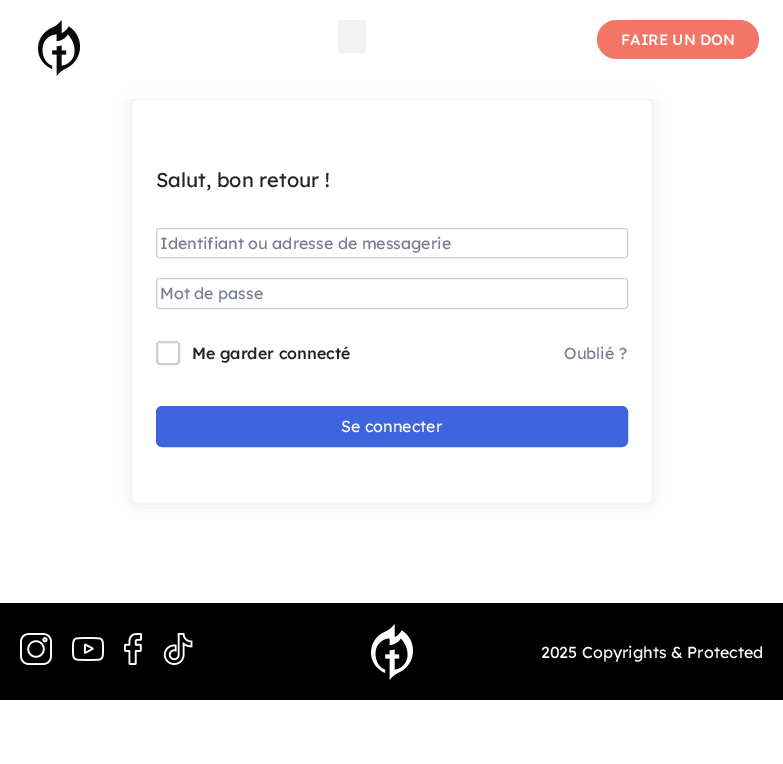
%!PS
<< /PageSize [783 764] /PageUsesTransparency true >> setpagedevice
/rgb { 3 { 255 div 3 1 roll } repeat setrgbcolor } def
/font { [ exch dup neg 0 0 3 -1 roll 0 0 ] selectfont } def
/text { moveto show } def
/alpha { dup .setfillconstantalpha .setstrokeconstantalpha } def
/roundrect { 5 dict begin { /r /h /w /y /x } { exch def } forall
  x r add y moveto x w add y 2 copy h add r arct x w add y h add x 1 index r arct
  x y h add x y r arct x y 2 copy exch w add exch r arct closepath end } def
/shadow { 12 dict begin { /a /b /q /h /w /y /x } { exch def } forall gsave /was 0 def
  9 -2 -9 { dup b mul 4 div /e exch def 1 sub .425 mul 2.718 exch exp 1 add a .99 .min exch div /now exch def
    1 1 now sub 1 was sub div sub alpha /was now def
    w h .min e 2 mul add 0 gt { x e sub y e sub w e 2 mul add h e 2 mul add
      q e add b .6 mul add w h .min 2 div e add .min 0 .max roundrect fill } if } for grestore end } def
/picture { 5 dict begin { /h /w /y /x /name } { exch def } forall
  gsave x y translate w h scale
  w h 8 [w 0 0 h 0 0] name (r) file false 3 colorimage grestore end } def
0 .pushpdf14devicefilter
0 764 translate 1 -1 scale
4 setmiterlimit
255 255 255 rgb
0 0 783 764 rectfill
gsave
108 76 moveto 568 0 rlineto 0 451 rlineto -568 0 rlineto closepath 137 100 moveto 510 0 rlineto 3 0 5 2 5 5 rcurveto 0 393 rlineto 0 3 -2 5 -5 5 rcurveto -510 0 rlineto -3 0 -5 -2 -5 -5 rcurveto 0 -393 rlineto 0 -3 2 -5 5 -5 rcurveto closepath eoclip newpath
0 0 0 rgb
132 100 520 403 5 7.5 0.1 shadow
grestore
127 90 530 9 rectfill
(img_01.rgb) 38 20 42 56 picture
242 242 242 rgb
338 20 28 33 3 roundrect fill
243 117 102 rgb
597 20 162 39 19.5 roundrect fill
205 207 213 rgb
156.5 228.5 471 29 2.5 roundrect stroke
156.5 278.5 471 30 2.5 roundrect stroke
2 setlinewidth
157 342 22 22 3 roundrect stroke
62 100 222 rgb
156.5 406.5 471 40 5.5 roundrect gsave fill grestore
1 setlinewidth
stroke
0 0 0 rgb
0 603 783 97 rectfill
(img_02.rgb) 20 633 32 32 picture
(img_03.rgb) 72 637 32 24 picture
(img_04.rgb) 124 633 18 32 picture
(img_05.rgb) 163 633 30 32 picture
(img_06.rgb) 371 624 42 56 picture
/Lexend-Medium 15 font
255 255 255 rgb
(FAIRE UN DON) 621 45 text
/Lexend-Regular 20 font
33 35 39 rgb
(Salut, bon retour !) 156 187 text
/Lexend-Regular 16 font
117 124 142 rgb
(Identifiant ou adresse de messagerie) 160 249 text
(Mot de passe) 160 299 text
/Lexend-Medium 16 font
33 35 39 rgb
(Me garder connecté) 192 359 text
/Lexend-Regular 16 font
117 124 142 rgb
(Oublié ?) 564 359 text
255 255 255 rgb
(Se connecter) 341 432 text
(2025 Copyrights & Protected) 541 658 text
.poppdf14devicefilter showpage
